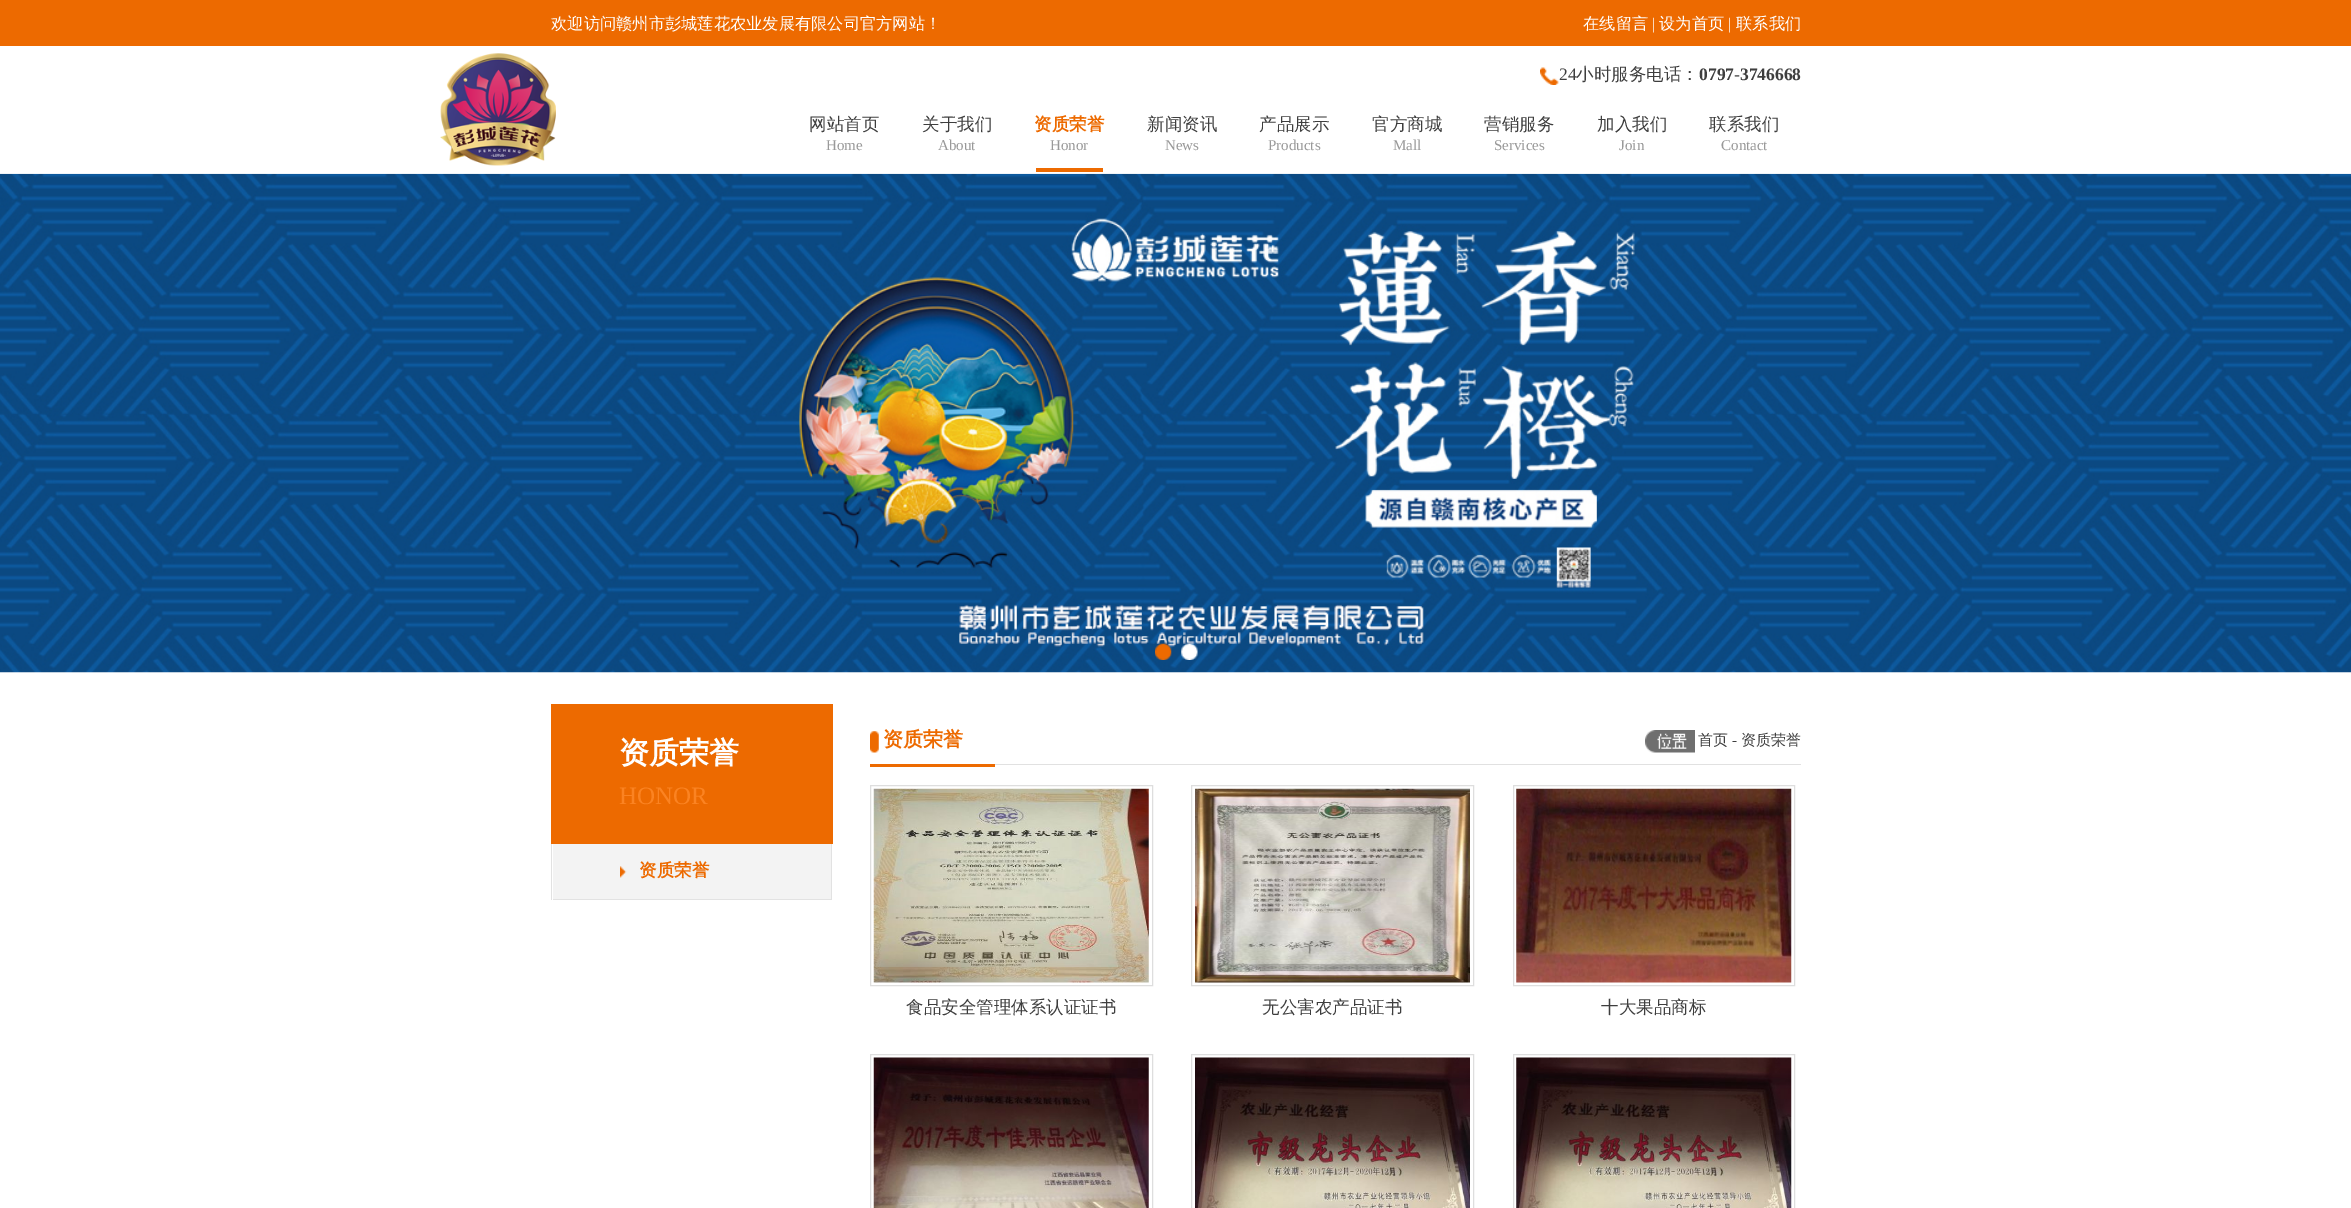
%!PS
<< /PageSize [2351 1208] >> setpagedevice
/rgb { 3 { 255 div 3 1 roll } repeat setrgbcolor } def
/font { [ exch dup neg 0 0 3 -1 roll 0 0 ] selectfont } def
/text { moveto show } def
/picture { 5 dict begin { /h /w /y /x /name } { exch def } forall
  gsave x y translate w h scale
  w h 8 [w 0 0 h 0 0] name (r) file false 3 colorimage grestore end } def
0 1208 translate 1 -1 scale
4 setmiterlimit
255 255 255 rgb
0 0 2351 1208 rectfill
237 106 0 rgb
0 0 2351 46 rectfill
(img_01.rgb) 440 53 116 113 picture
(img_02.rgb) 1540 67 19 18 picture
1036 168 67 4 rectfill
(img_03.rgb) 0 173 2351 500 picture
(img_04.rgb) 1155 643 17 17 picture
(img_05.rgb) 1181 643 17 17 picture
551 704 282 140 rectfill
226 226 226 rgb
831 844 1 56 rectfill
551 844 1 56 rectfill
553 899 278 1 rectfill
243 243 243 rgb
553 844 278 55 rectfill
(img_06.rgb) 620 866 7 12 picture
237 106 0 rgb
870 764 125 3 rectfill
(img_07.rgb) 870 731 9 22 picture
225 225 225 rgb
995 764 806 1 rectfill
(img_08.rgb) 1645 730 50 23 picture
222 222 222 rgb
870.5 785.5 282 200 rectstroke
(img_09.rgb) 873 788 276 195 picture
1191.5 785.5 282 200 rectstroke
(img_10.rgb) 1195 788 275 195 picture
1513.5 785.5 281 200 rectstroke
(img_11.rgb) 1516 788 276 195 picture
870.5 1054.5 282 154 rectstroke
(img_12.rgb) 873 1057 276 151 picture
1191.5 1054.5 282 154 rectstroke
(img_13.rgb) 1195 1057 275 151 picture
1513.5 1054.5 281 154 rectstroke
(img_14.rgb) 1516 1057 276 151 picture
/WenQuanYiZenHei-Medium 16.25 font
255 255 255 rgb
(欢迎访问赣州市彭城莲花农业发展有限公司官方网站！) 551 29 text
(在线留言) 1583 29 text
/LiberationSerif-Regular 16.25 font
(|) 1652 29 text
/WenQuanYiZenHei-Medium 16.25 font
(设为首页) 1659 29 text
/LiberationSerif-Regular 16.25 font
(|) 1728 29 text
/WenQuanYiZenHei-Medium 16.25 font
(联系我们) 1736 29 text
/LiberationSerif-Regular 17.5 font
62 62 62 rgb
(24) 1559 80 text
/WenQuanYiZenHei-Medium 17.5 font
(小时服务电话：) 1576 80 text
/LiberationSerif-Bold 17.5 font
(0797-3746668) 1699 80 text
/WenQuanYiZenHei-Medium 17.5 font
(网站首页) 809 130 text
/LiberationSerif-Regular 15 font
153 153 153 rgb
(Home) 826 150 text
/WenQuanYiZenHei-Medium 17.5 font
62 62 62 rgb
(关于我们) 922 130 text
/LiberationSerif-Regular 15 font
153 153 153 rgb
(About) 938 150 text
/WenQuanYiZenHei-Bold 17.5 font
237 106 0 rgb
(资质荣誉) 1034 130 text
/LiberationSerif-Regular 15 font
153 153 153 rgb
(Honor) 1050 150 text
/WenQuanYiZenHei-Medium 17.5 font
62 62 62 rgb
(新闻资讯) 1147 130 text
/LiberationSerif-Regular 15 font
153 153 153 rgb
(News) 1165 150 text
/WenQuanYiZenHei-Medium 17.5 font
62 62 62 rgb
(产品展示) 1259 130 text
/LiberationSerif-Regular 15 font
153 153 153 rgb
(Products) 1268 150 text
/WenQuanYiZenHei-Medium 17.5 font
62 62 62 rgb
(官方商城) 1372 130 text
/LiberationSerif-Regular 15 font
153 153 153 rgb
(Mall) 1393 150 text
/WenQuanYiZenHei-Medium 17.5 font
62 62 62 rgb
(营销服务) 1484 130 text
/LiberationSerif-Regular 15 font
153 153 153 rgb
(Services) 1494 150 text
/WenQuanYiZenHei-Medium 17.5 font
62 62 62 rgb
(加入我们) 1597 130 text
/LiberationSerif-Regular 15 font
153 153 153 rgb
(Join) 1619 150 text
/WenQuanYiZenHei-Medium 17.5 font
62 62 62 rgb
(联系我们) 1709 130 text
/LiberationSerif-Regular 15 font
153 153 153 rgb
(Contact) 1721 150 text
/WenQuanYiZenHei-Bold 30 font
255 255 255 rgb
(资质荣誉) 619 763 text
/LiberationSerif-Regular 25 font
251 131 34 rgb
(HONOR) 619 804 text
/WenQuanYiZenHei-Bold 17.5 font
237 106 0 rgb
(资质荣誉) 639 876 text
/WenQuanYiZenHei-Bold 20 font
(资质荣誉) 883 746 text
/WenQuanYiZenHei-Medium 15 font
62 62 62 rgb
(首页) 1698 745 text
/LiberationSerif-Regular 15 font
(-) 1732 745 text
/WenQuanYiZenHei-Medium 15 font
(资质荣誉) 1741 745 text
/WenQuanYiZenHei-Medium 17.5 font
(食品安全管理体系认证证书) 906 1013 text
(无公害农产品证书) 1262 1013 text
(十大果品商标) 1601 1013 text
showpage
